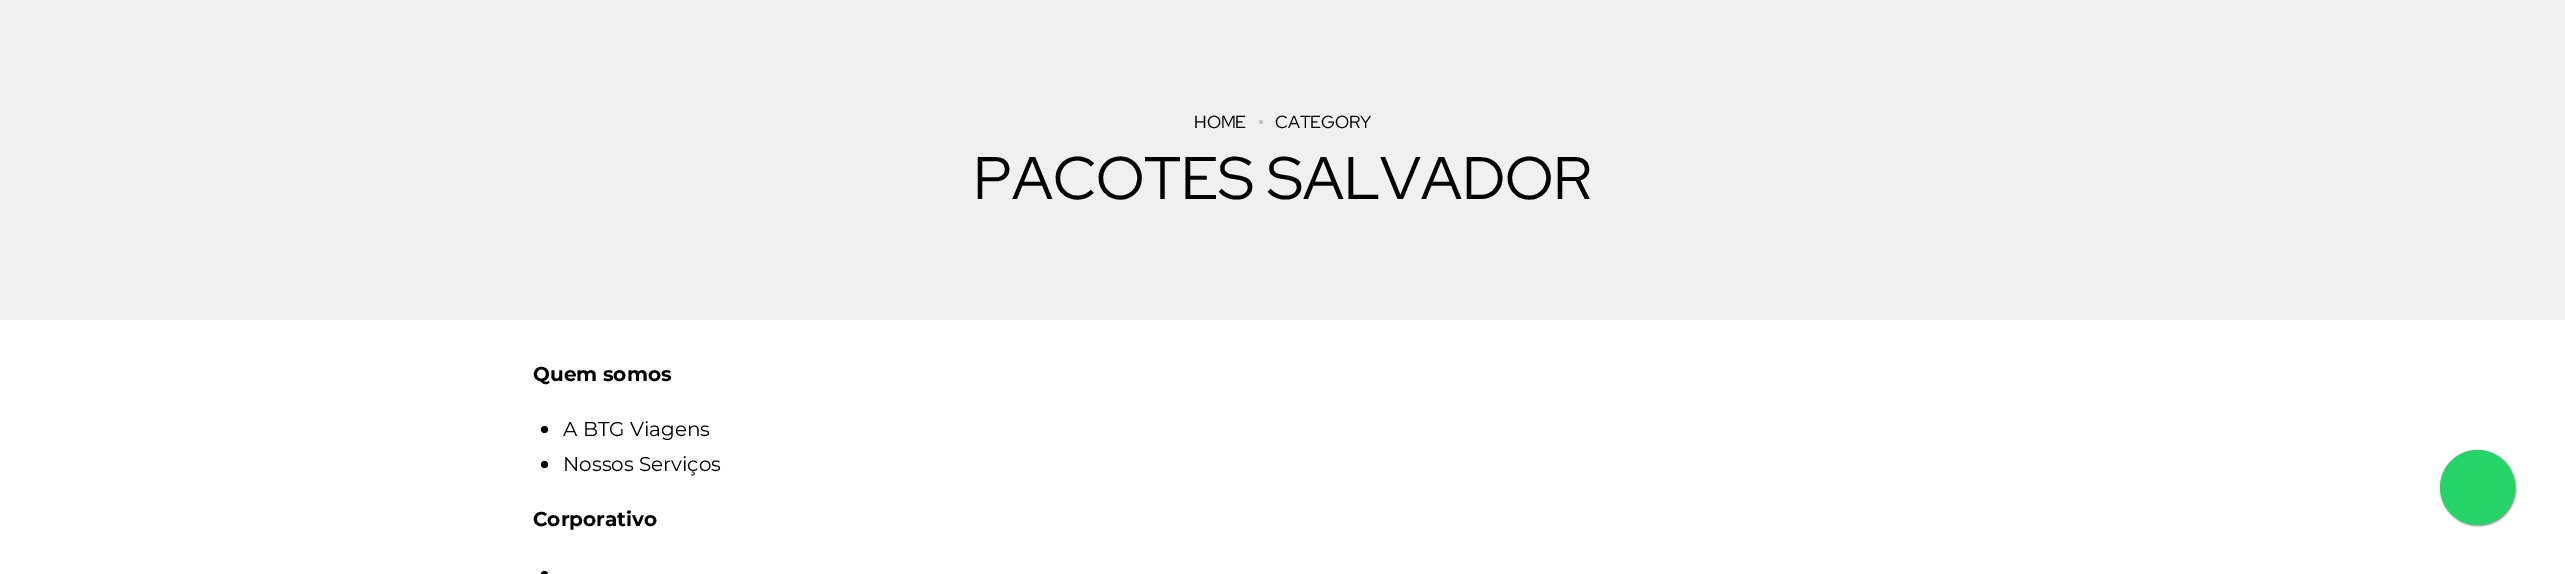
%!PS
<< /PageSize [2565 574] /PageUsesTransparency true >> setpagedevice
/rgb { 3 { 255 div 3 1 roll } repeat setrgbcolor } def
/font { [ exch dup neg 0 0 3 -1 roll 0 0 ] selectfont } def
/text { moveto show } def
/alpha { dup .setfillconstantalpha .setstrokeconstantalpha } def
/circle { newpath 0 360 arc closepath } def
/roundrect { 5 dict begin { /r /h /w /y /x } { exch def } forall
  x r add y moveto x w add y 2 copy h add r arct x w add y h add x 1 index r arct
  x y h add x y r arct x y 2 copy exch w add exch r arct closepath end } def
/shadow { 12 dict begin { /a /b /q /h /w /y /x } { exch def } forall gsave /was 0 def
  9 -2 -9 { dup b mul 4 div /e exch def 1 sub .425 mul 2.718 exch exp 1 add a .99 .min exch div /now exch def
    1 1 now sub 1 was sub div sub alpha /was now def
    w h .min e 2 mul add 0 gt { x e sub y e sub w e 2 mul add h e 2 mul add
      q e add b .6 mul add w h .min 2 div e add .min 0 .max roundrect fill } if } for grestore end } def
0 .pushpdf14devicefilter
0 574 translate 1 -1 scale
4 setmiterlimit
255 255 255 rgb
0 0 2565 574 rectfill
240 240 240 rgb
0 0 2565 320 rectfill
192 192 192 rgb
1261 122 2 circle fill
0 0 0 rgb
544.5 429.5 3.5 circle fill
544.5 464.5 3.5 circle fill
544.5 574.5 3.5 circle fill
136 136 136 rgb
2441 451 75 75 37.5 1 1 shadow
37 211 102 rgb
2477.5 487.5 37.5 circle fill
/RedHatDisplay-Regular 17.5 font
0 0 0 rgb
(HOME) 1194 128 text
(CATEGORY) 1275 128 text
/RedHatDisplay-Regular 60 font
(PACOTES SALVADOR) 973 199 text
/Montserrat-Bold 20 font
(Quem somos) 533 381 text
/Montserrat-Regular 20 font
(A BTG Viagens) 563 436 text
(Nossos Serviços) 563 471 text
/Montserrat-Bold 20 font
(Corporativo) 533 526 text
.poppdf14devicefilter showpage
